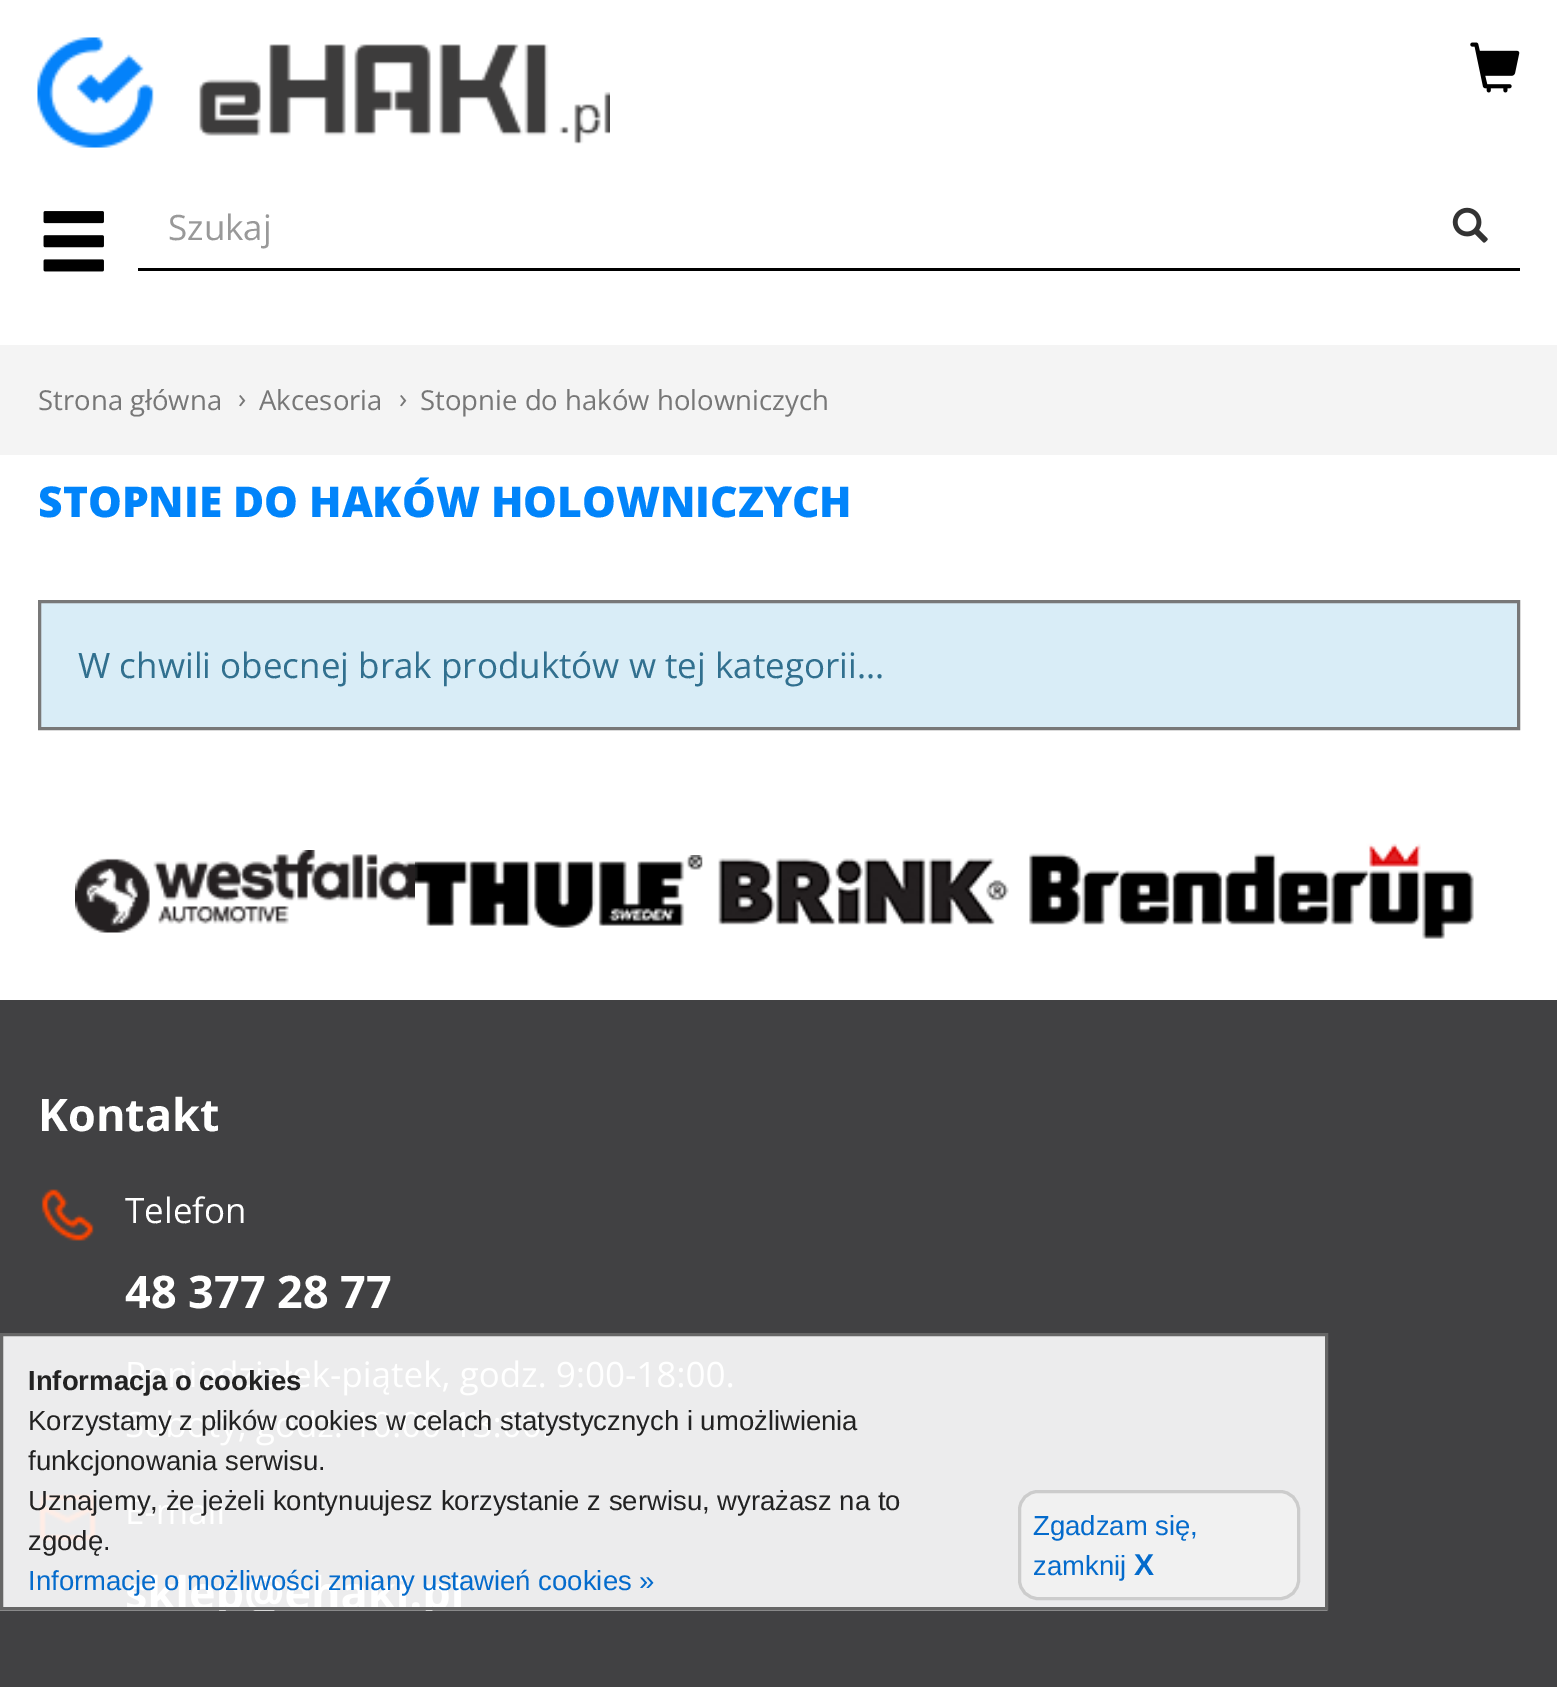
%!PS
<< /PageSize [1557 1687] >> setpagedevice
/rgb { 3 { 255 div 3 1 roll } repeat setrgbcolor } def
/font { [ exch dup neg 0 0 3 -1 roll 0 0 ] selectfont } def
/text { moveto show } def
/roundrect { 5 dict begin { /r /h /w /y /x } { exch def } forall
  x r add y moveto x w add y 2 copy h add r arct x w add y h add x 1 index r arct
  x y h add x y r arct x y 2 copy exch w add exch r arct closepath end } def
/picture { 5 dict begin { /h /w /y /x /name } { exch def } forall
  gsave x y translate w h scale
  w h 8 [w 0 0 h 0 0] name (r) file false 3 colorimage grestore end } def
0 1687 translate 1 -1 scale
4 setmiterlimit
255 255 255 rgb
0 0 1557 1687 rectfill
(img_01.rgb) 37 37 573 111 picture
(img_02.rgb) 1470 42 50 51 picture
(img_03.rgb) 43 211 61 61 picture
0 0 0 rgb
138 268 1382 3 rectfill
(img_04.rgb) 1452 207 36 36 picture
244 244 244 rgb
0 345 1557 110 rectfill
217 237 247 rgb
39.5 601.5 moveto 1479 0 rlineto 0 127 rlineto -1479 0 rlineto closepath gsave fill grestore
120 120 120 rgb
3 setlinewidth
stroke
(img_05.rgb) 75 850 340 83 picture
(img_06.rgb) 415 855 288 73 picture
(img_07.rgb) 702 855 307 70 picture
(img_08.rgb) 1029 843 445 96 picture
65 65 67 rgb
0 1000 1557 687 rectfill
(img_09.rgb) 41 1189 53 52 picture
(img_10.rgb) 39 1494 57 47 picture
(img_11.rgb) 0 1336 1328 275 picture
102 102 102 rgb
1.5 1334.5 1325 274 rectstroke
241 241 241 rgb
1019.5 1491.5 279 107 18.5 roundrect gsave fill grestore
204 204 204 rgb
stroke
/OpenSans-Regular 35 font
153 153 153 rgb
(Szukaj) 168 240 text
/OpenSans-Regular 27.5 font
119 119 119 rgb
(Strona główna) 38 410 text
(›) 238 408 text
(Akcesoria) 259 410 text
(›) 399 408 text
(Stopnie do haków holowniczych) 420 410 text
/OpenSans-ExtraBold 42.5 font
1 132 250 rgb
(STOPNIE DO HAKÓW HOLOWNICZYCH) 38 517 text
/OpenSans-Regular 35 font
49 112 143 rgb
(W chwili obecnej brak produktów w tej kategorii...) 78 678 text
/OpenSans-Bold 45 font
255 255 255 rgb
(Kontakt) 38 1131 text
/OpenSans-Regular 35 font
(Telefon) 125 1223 text
/OpenSans-Bold 45 font
(48 377 28 77) 125 1308 text
/LiberationSans-Bold 27.5 font
34 34 34 rgb
(Informacja o cookies) 28 1390 text
/LiberationSans-Regular 27.5 font
(Korzystamy z plików cookies w celach statystycznych i umożliwienia) 28 1430 text
(funkcjonowania serwisu.) 28 1470 text
(Uznajemy, że jeżeli kontynuujesz korzystanie z serwisu, wyrażasz na to) 28 1510 text
(zgodę.) 28 1550 text
4 107 204 rgb
(Informacje o możliwości zmiany ustawień cookies ») 28 1590 text
(Zgadzam się,) 1033 1535 text
(zamknij) 1033 1575 text
/LiberationSans-Bold 30 font
(X) 1134 1575 text
showpage
